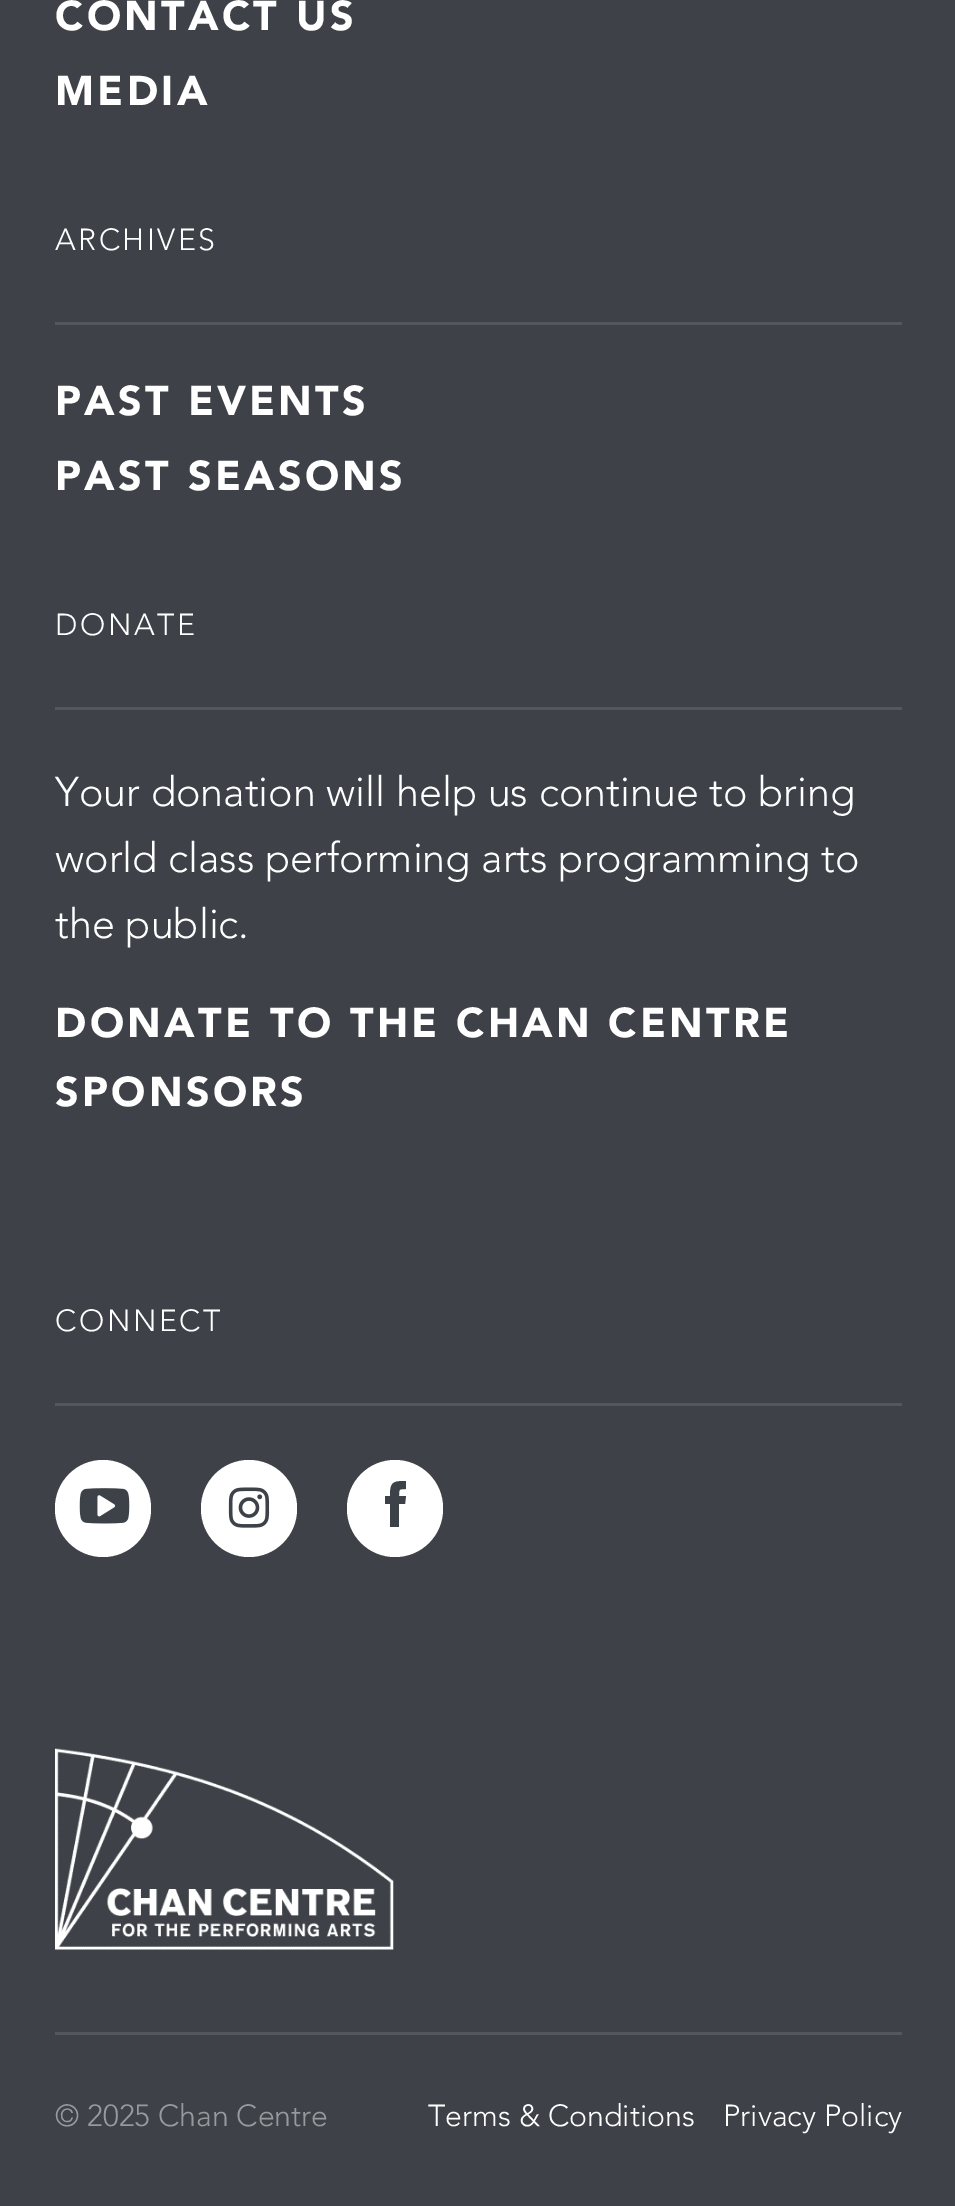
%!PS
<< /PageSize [955 2206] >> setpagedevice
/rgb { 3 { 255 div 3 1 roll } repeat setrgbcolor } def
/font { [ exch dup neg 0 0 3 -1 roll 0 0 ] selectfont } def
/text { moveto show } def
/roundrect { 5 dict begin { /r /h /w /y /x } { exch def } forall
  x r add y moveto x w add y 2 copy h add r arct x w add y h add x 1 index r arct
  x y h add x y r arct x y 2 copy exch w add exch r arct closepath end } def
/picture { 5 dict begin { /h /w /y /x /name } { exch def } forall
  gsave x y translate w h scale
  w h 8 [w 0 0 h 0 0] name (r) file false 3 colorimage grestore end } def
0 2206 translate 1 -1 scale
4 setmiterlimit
62 66 72 rgb
0 0 955 2206 rectfill
84 88 93 rgb
55 322 847 3 rectfill
55 707 847 3 rectfill
55 1403 847 3 rectfill
255 255 255 rgb
55 1460 96 97 48 roundrect fill
(img_01.rgb) 79 1488 51 36 picture
201 1460 96 97 48 roundrect fill
(img_02.rgb) 228 1487 42 41 picture
347 1460 96 97 48 roundrect fill
61 66 72 rgb
399 1496 moveto 7 0 rlineto -1 8 rlineto -6 0 rlineto 0 23 rlineto -9 0 rlineto 0 -23 rlineto -5 0 rlineto 0 -8 rlineto 5 0 rlineto 0 -14 3 -15 16 -15 rcurveto 0 8 rlineto -7 0 -7 0 -7 7 rcurveto closepath fill
(img_03.rgb) 55 1748 339 202 picture
84 88 93 rgb
55 2032 847 3 rectfill
/Avenir-Black 41.25 font
255 255 255 rgb
55 30 moveto 3.3 0 (CONTACT US) ashow
55 105 moveto 3.3 0 (MEDIA) ashow
/Avenir-Light 30.25 font
55 250 moveto 2.5 0 (ARCHIVES) ashow
/Avenir-Black 41.25 font
55 415 moveto 3.3 0 (PAST EVENTS) ashow
55 490 moveto 3.3 0 (PAST SEASONS) ashow
/Avenir-Light 30.25 font
55 635 moveto 2.5 0 (DONATE) ashow
/Avenir-Light 41.25 font
(Your donation will help us continue to bring) 55 806 text
(world class performing arts programming to) 55 872 text
(the public.) 55 938 text
/Avenir-Black 41.25 font
55 1037 moveto 3.3 0 (DONATE TO THE CHAN CENTRE) ashow
55 1106 moveto 3.3 0 (SPONSORS) ashow
/Avenir-Light 30.25 font
55 1331 moveto 2.5 0 (CONNECT) ashow
151 153 156 rgb
(© 2025 Chan Centre) 55 2126 text
255 255 255 rgb
(Terms & Conditions) 428 2126 text
(Privacy Policy) 723 2126 text
showpage
